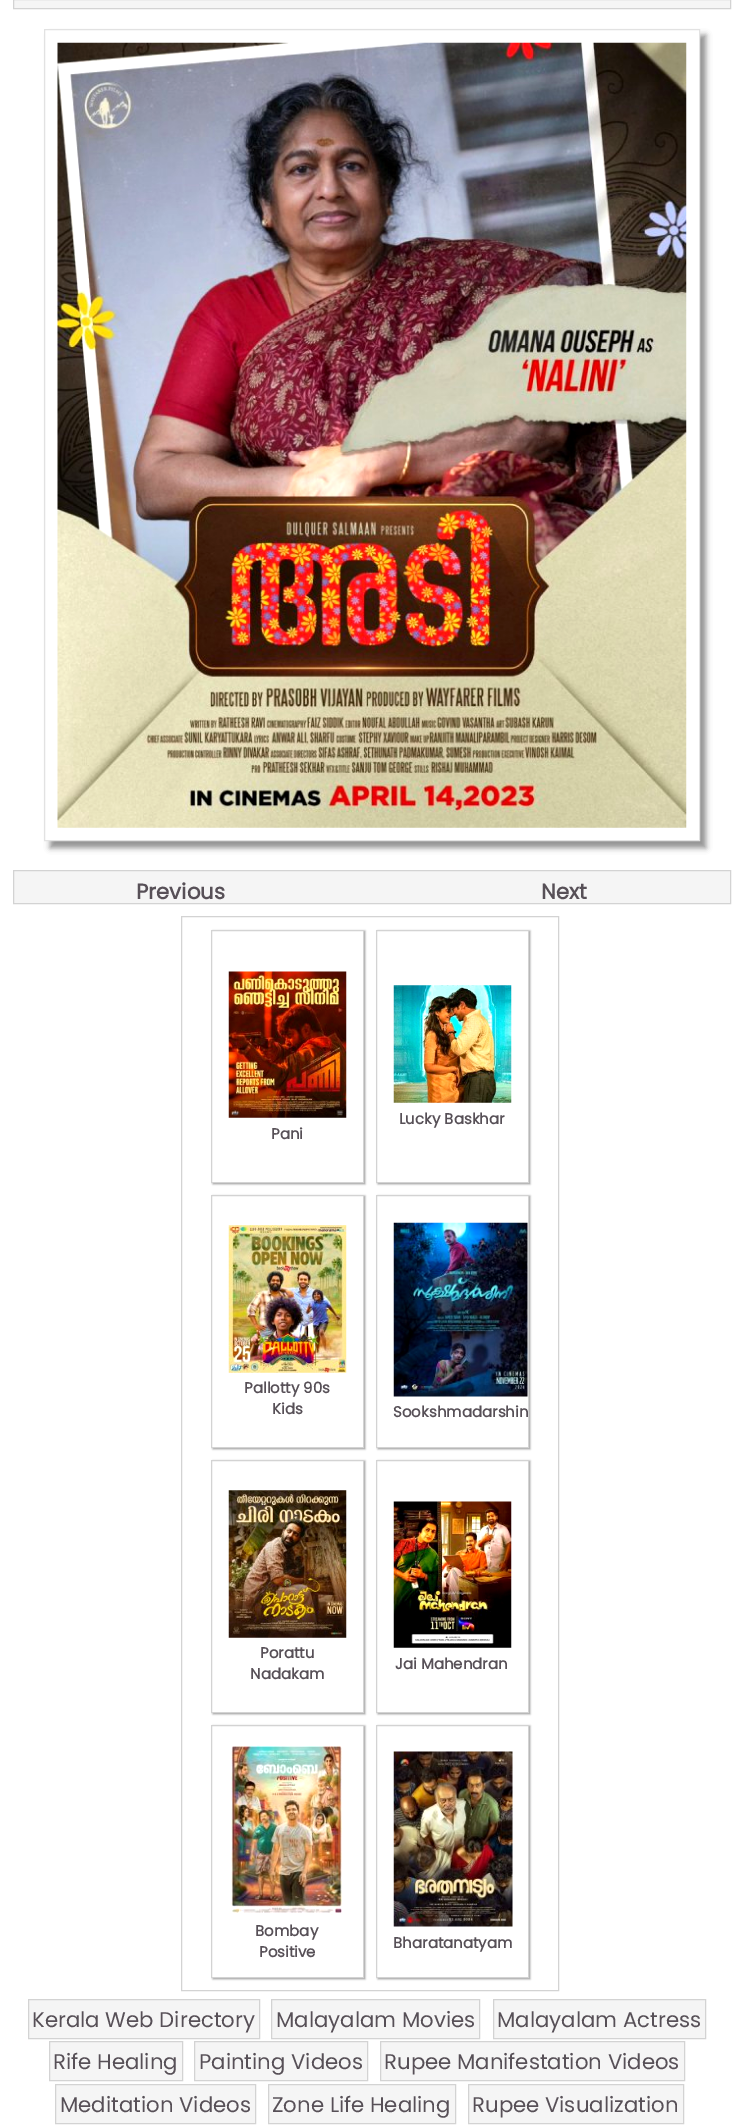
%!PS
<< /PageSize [738 2127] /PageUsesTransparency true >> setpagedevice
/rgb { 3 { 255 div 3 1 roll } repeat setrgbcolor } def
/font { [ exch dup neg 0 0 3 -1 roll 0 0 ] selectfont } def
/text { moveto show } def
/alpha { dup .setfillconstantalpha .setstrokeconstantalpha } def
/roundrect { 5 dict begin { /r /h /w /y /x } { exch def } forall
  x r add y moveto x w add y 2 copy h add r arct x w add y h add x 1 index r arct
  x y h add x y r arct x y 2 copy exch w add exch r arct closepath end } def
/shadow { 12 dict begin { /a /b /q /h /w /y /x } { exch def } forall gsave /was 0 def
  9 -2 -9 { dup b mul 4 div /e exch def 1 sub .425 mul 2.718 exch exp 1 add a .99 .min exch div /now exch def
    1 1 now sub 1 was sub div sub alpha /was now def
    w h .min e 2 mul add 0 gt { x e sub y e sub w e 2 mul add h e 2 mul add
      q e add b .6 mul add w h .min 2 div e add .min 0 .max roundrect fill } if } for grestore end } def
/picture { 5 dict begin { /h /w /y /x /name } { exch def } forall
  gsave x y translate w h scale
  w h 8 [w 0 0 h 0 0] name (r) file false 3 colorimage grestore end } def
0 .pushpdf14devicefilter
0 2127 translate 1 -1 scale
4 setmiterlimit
255 255 255 rgb
0 0 738 2127 rectfill
245 245 245 rgb
13.5 -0.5 moveto 717 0 rlineto 0 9 rlineto -717 0 rlineto closepath gsave fill grestore
211 211 211 rgb
stroke
gsave
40 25 moveto 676 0 rlineto 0 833 rlineto -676 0 rlineto closepath 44 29 moveto 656 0 rlineto 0 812 rlineto -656 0 rlineto closepath eoclip newpath
144 144 144 rgb
50 35 656 813 0 3 1 shadow
grestore
226 226 226 rgb
44.5 29.5 655 811 rectstroke
(img_01.rgb) 57 42 630 786 picture
245 245 245 rgb
13.5 870.5 moveto 717 0 rlineto 0 33 rlineto -717 0 rlineto closepath gsave fill grestore
211 211 211 rgb
stroke
181.5 916.5 377 1074 rectstroke
136 136 136 rgb
378 931 152 253 0 1 1 shadow
255 255 255 rgb
376.5 930.5 moveto 152 0 rlineto 0 252 rlineto -152 0 rlineto closepath gsave fill grestore
211 211 211 rgb
stroke
(img_02.rgb) 393 985 119 118 picture
136 136 136 rgb
213 931 152 253 0 1 1 shadow
255 255 255 rgb
211.5 930.5 moveto 152 0 rlineto 0 252 rlineto -152 0 rlineto closepath gsave fill grestore
211 211 211 rgb
stroke
(img_03.rgb) 228 971 119 147 picture
136 136 136 rgb
213 1196 152 253 0 1 1 shadow
255 255 255 rgb
211.5 1195.5 moveto 152 0 rlineto 0 252 rlineto -152 0 rlineto closepath gsave fill grestore
211 211 211 rgb
stroke
(img_04.rgb) 228 1225 119 148 picture
136 136 136 rgb
378 1196 152 253 0 1 1 shadow
255 255 255 rgb
376.5 1195.5 moveto 152 0 rlineto 0 252 rlineto -152 0 rlineto closepath gsave fill grestore
211 211 211 rgb
stroke
(img_05.rgb) 393 1222 135 175 picture
136 136 136 rgb
213 1461 152 253 0 1 1 shadow
255 255 255 rgb
211.5 1460.5 moveto 152 0 rlineto 0 252 rlineto -152 0 rlineto closepath gsave fill grestore
211 211 211 rgb
stroke
(img_06.rgb) 228 1490 119 148 picture
136 136 136 rgb
378 1461 152 253 0 1 1 shadow
255 255 255 rgb
376.5 1460.5 moveto 152 0 rlineto 0 252 rlineto -152 0 rlineto closepath gsave fill grestore
211 211 211 rgb
stroke
(img_07.rgb) 393 1501 119 147 picture
136 136 136 rgb
213 1726 152 253 0 1 1 shadow
255 255 255 rgb
211.5 1725.5 moveto 152 0 rlineto 0 252 rlineto -152 0 rlineto closepath gsave fill grestore
211 211 211 rgb
stroke
(img_08.rgb) 231 1745 111 170 picture
136 136 136 rgb
378 1726 152 253 0 1 1 shadow
255 255 255 rgb
376.5 1725.5 moveto 152 0 rlineto 0 252 rlineto -152 0 rlineto closepath gsave fill grestore
211 211 211 rgb
stroke
(img_09.rgb) 393 1751 120 176 picture
245 245 245 rgb
28.5 1999.5 moveto 231 0 rlineto 0 39 rlineto -231 0 rlineto closepath gsave fill grestore
211 211 211 rgb
stroke
245 245 245 rgb
271.5 1999.5 moveto 208 0 rlineto 0 39 rlineto -208 0 rlineto closepath gsave fill grestore
211 211 211 rgb
stroke
245 245 245 rgb
493.5 1999.5 moveto 212 0 rlineto 0 39 rlineto -212 0 rlineto closepath gsave fill grestore
211 211 211 rgb
stroke
245 245 245 rgb
49.5 2041.5 moveto 133 0 rlineto 0 39 rlineto -133 0 rlineto closepath gsave fill grestore
211 211 211 rgb
stroke
245 245 245 rgb
194.5 2041.5 moveto 173 0 rlineto 0 39 rlineto -173 0 rlineto closepath gsave fill grestore
211 211 211 rgb
stroke
245 245 245 rgb
380.5 2041.5 moveto 304 0 rlineto 0 39 rlineto -304 0 rlineto closepath gsave fill grestore
211 211 211 rgb
stroke
245 245 245 rgb
55.5 2084.5 moveto 200 0 rlineto 0 39 rlineto -200 0 rlineto closepath gsave fill grestore
211 211 211 rgb
stroke
245 245 245 rgb
268.5 2084.5 moveto 187 0 rlineto 0 39 rlineto -187 0 rlineto closepath gsave fill grestore
211 211 211 rgb
stroke
245 245 245 rgb
468.5 2084.5 moveto 215 0 rlineto 0 39 rlineto -215 0 rlineto closepath gsave fill grestore
211 211 211 rgb
stroke
/Poppins-Bold 21.25 font
87 80 87 rgb
(Previous) 136 899 text
(Next) 541 899 text
/Poppins-Bold 15 font
(Lucky Baskhar) 399 1124 text
(Pani) 271 1139 text
(Pallotty 90s) 244 1393 text
(Kids) 272 1414 text
(Sookshmadarshin) 393 1417 text
(Porattu) 260 1658 text
(Nadakam) 250 1679 text
(Jai Mahendran) 395 1669 text
(Bombay) 255 1936 text
(Positive) 259 1957 text
(Bharatanatyam) 393 1948 text
/Poppins-Regular 21.25 font
(Kerala Web Directory) 32 2027 text
(Malayalam Movies) 276 2027 text
(Malayalam Actress) 497 2027 text
(Rife Healing) 53 2069 text
(Painting Videos) 199 2069 text
(Rupee Manifestation Videos) 384 2069 text
(Meditation Videos) 60 2112 text
(Zone Life Healing) 272 2112 text
(Rupee Visualization) 472 2112 text
.poppdf14devicefilter showpage
